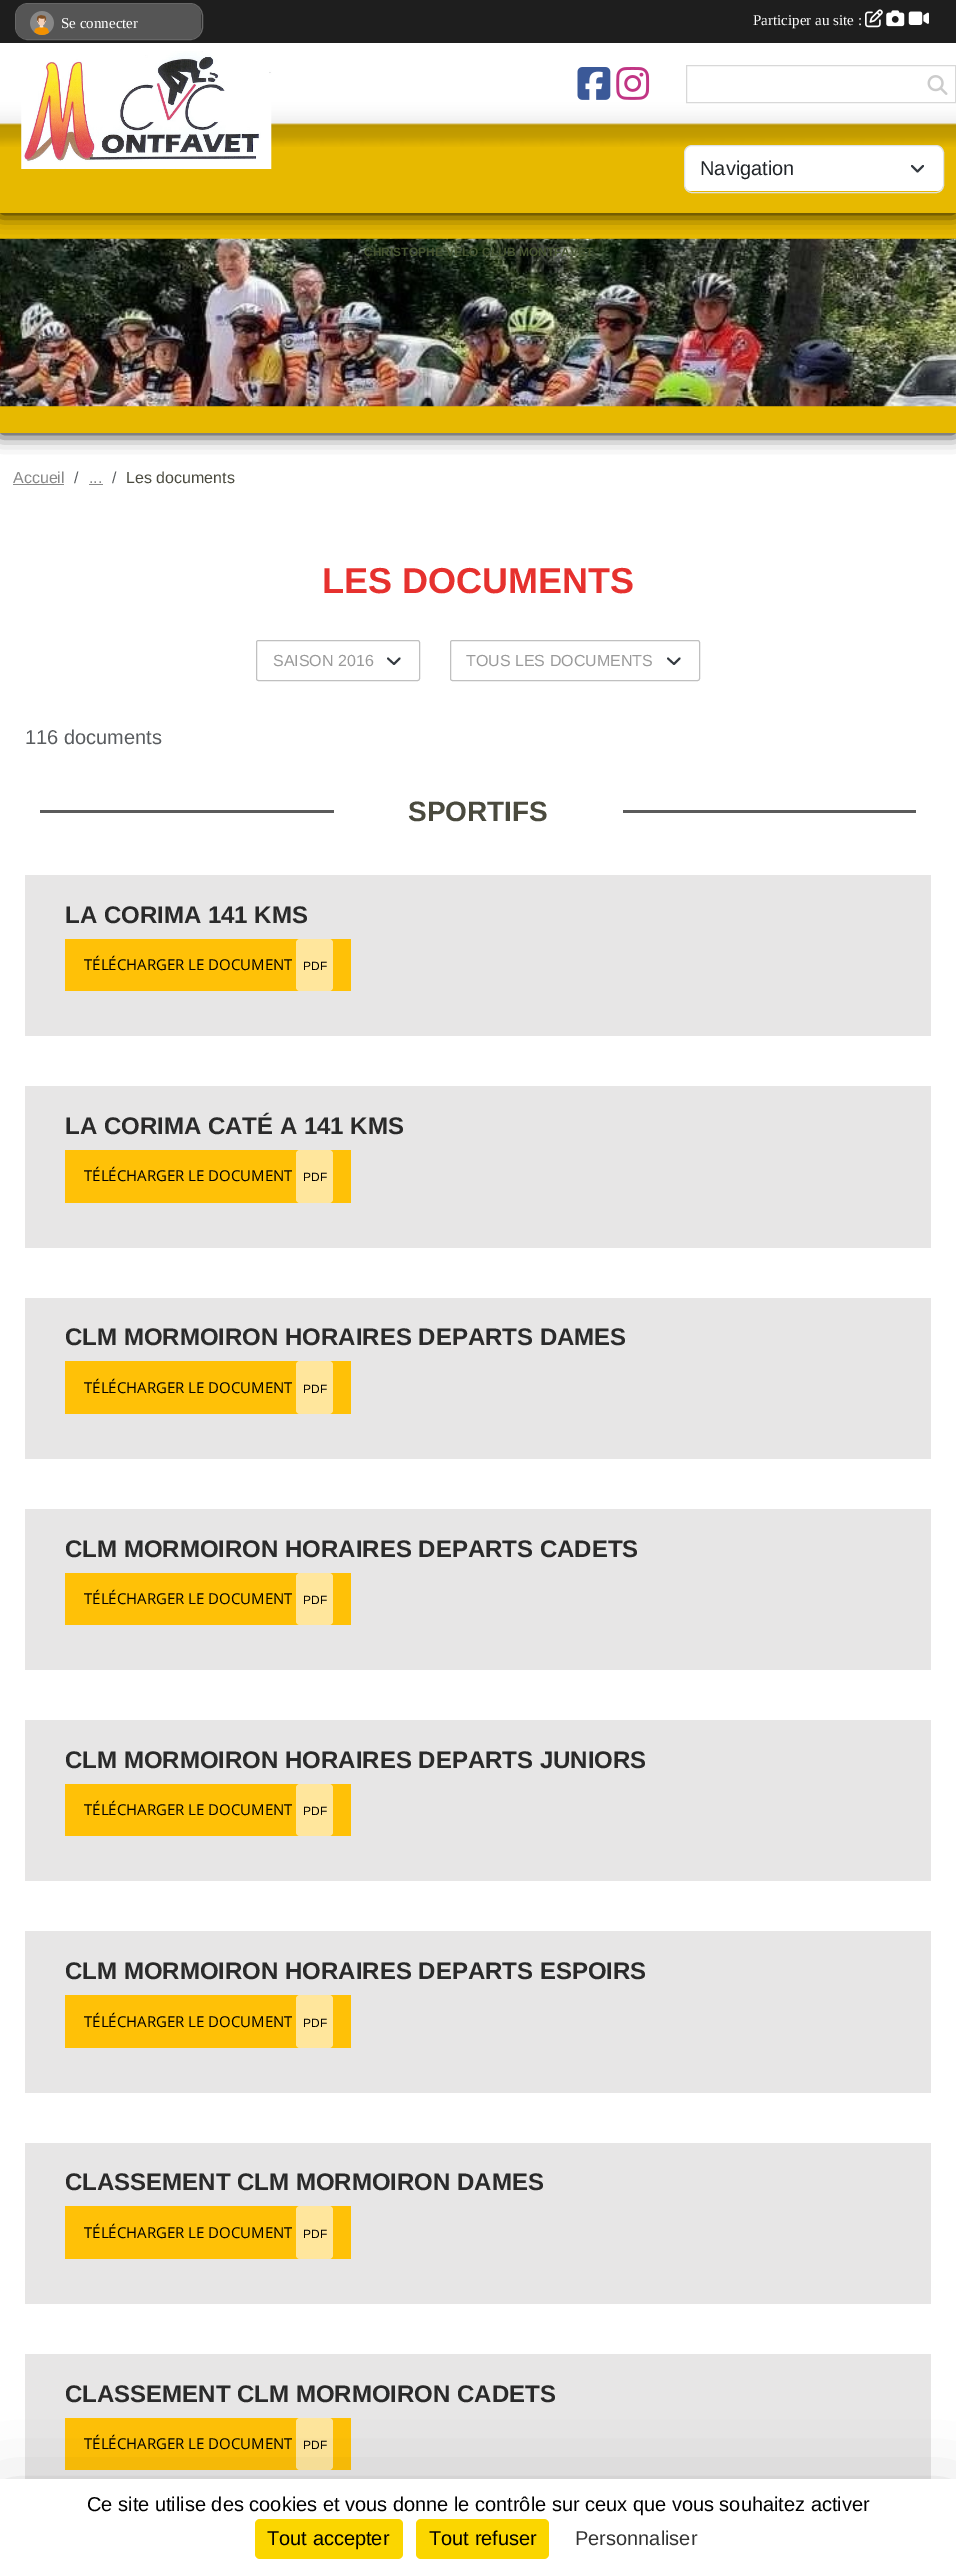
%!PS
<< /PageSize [956 2571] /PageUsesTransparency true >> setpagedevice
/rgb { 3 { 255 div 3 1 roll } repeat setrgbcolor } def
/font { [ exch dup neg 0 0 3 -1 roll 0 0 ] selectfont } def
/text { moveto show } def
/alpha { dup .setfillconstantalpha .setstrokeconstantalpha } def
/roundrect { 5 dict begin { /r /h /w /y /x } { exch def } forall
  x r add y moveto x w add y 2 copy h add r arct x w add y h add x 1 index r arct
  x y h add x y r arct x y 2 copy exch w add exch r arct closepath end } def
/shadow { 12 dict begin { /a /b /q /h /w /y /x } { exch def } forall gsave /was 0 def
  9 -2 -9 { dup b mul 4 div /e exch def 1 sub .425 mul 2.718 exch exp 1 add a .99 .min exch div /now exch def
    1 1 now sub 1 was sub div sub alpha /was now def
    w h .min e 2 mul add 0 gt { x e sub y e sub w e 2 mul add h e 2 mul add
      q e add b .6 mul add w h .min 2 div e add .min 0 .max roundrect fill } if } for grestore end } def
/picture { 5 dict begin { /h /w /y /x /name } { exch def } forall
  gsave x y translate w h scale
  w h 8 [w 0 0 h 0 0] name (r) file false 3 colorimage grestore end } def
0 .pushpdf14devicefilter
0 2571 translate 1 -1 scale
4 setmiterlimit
255 255 255 rgb
0 0 956 2571 rectfill
0 0 0 rgb
0 213 956 220 0 9.5 1 shadow
231 185 0 rgb
0 213 956 220 rectfill
(img_10.rgb) 0 238 956 169 picture
0 0 0 rgb
0 43 956 170 0 9.5 1 shadow
30 30 30 rgb
0 0 956 43 rectfill
51 51 51 rgb
15.5 3.5 187 36 12.5 roundrect gsave fill grestore
102 102 102 rgb
stroke
85 85 85 rgb
16 4 185 35 11 roundrect fill
(img_01.rgb) 30 11 24 24 picture
(img_02.rgb) 865 9 18 19 picture
(img_03.rgb) 886 10 19 17 picture
(img_04.rgb) 908 11 21 14 picture
231 185 0 rgb
0 123 956 90 rectfill
(img_05.rgb) 0 43 956 104 picture
(img_06.rgb) 21 51 251 118 picture
(img_07.rgb) 577 67 34 33 picture
(img_08.rgb) 616 67 34 33 picture
216 216 216 rgb
686.5 65.5 269 37 rectstroke
(img_09.rgb) 927 75 21 20 picture
255 255 255 rgb
685 146 258 45 6 roundrect fill
52 58 64 rgb
1.9 setlinewidth
1 setlinecap
1 setlinejoin
912 166 moveto 5.5 5.5 rlineto 5.5 -5.5 rlineto stroke
222 226 230 rgb
1 setlinewidth
0 setlinecap
0 setlinejoin
684.5 145.5 259 47 7.5 roundrect stroke
136 136 136 rgb
13 484 51 1 rectfill
89 484 14 1 rectfill
52 58 64 rgb
1.9 setlinewidth
1 setlinecap
1 setlinejoin
388 658.5 moveto 6 5.5 rlineto 5.5 -5.5 rlineto stroke
192 192 192 rgb
1 setlinewidth
0 setlinecap
0 setlinejoin
256.5 640.5 163 40 2 roundrect stroke
52 58 64 rgb
1.9 setlinewidth
1 setlinecap
1 setlinejoin
668 658.5 moveto 6 5.5 rlineto 5.5 -5.5 rlineto stroke
192 192 192 rgb
1 setlinewidth
0 setlinecap
0 setlinejoin
450.5 640.5 249 40 2 roundrect stroke
91 91 91 rgb
40 810 876 3 rectfill
255 255 255 rgb
334 810 289 3 rectfill
231 230 230 rgb
25 875 906 161 rectfill
255 193 7 rgb
65 939 286 52 rectfill
255 230 156 rgb
296 939 37 52 4 roundrect fill
231 230 230 rgb
25 1086 906 162 rectfill
255 193 7 rgb
65 1150 286 53 rectfill
255 230 156 rgb
296 1150 37 53 4 roundrect fill
231 230 230 rgb
25 1298 906 161 rectfill
255 193 7 rgb
65 1361 286 53 rectfill
255 230 156 rgb
296 1361 37 53 4 roundrect fill
231 230 230 rgb
25 1509 906 161 rectfill
255 193 7 rgb
65 1573 286 52 rectfill
255 230 156 rgb
296 1573 37 52 4 roundrect fill
231 230 230 rgb
25 1720 906 161 rectfill
255 193 7 rgb
65 1784 286 52 rectfill
255 230 156 rgb
296 1784 37 52 4 roundrect fill
231 230 230 rgb
25 1931 906 162 rectfill
255 193 7 rgb
65 1995 286 53 rectfill
255 230 156 rgb
296 1995 37 53 4 roundrect fill
231 230 230 rgb
25 2143 906 161 rectfill
255 193 7 rgb
65 2206 286 53 rectfill
255 230 156 rgb
296 2206 37 53 4 roundrect fill
231 230 230 rgb
25 2354 906 125 rectfill
255 193 7 rgb
65 2418 286 52 rectfill
255 230 156 rgb
296 2418 37 52 4 roundrect fill
0 0 0 rgb
0 2504 956 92 0 37.5 0.25 shadow
255 255 255 rgb
0 2479 956 92 rectfill
251 214 0 rgb
255 2519 148 40 5 roundrect fill
416 2519 133 40 5 roundrect fill
/LiberationSerif-Regular 15 font
255 255 255 rgb
(Se connecter) 61 28 text
(Participer au site :) 753 25 text
/LiberationSans-Regular 20 font
33 37 41 rgb
(Navigation) 700 175 text
/LiberationSans-Bold 12 font
71 84 49 rgb
(CHRISTOPHE VÉLO CLUB MONTFAVET) 364 256 text
/LiberationSans-Regular 16 font
136 136 136 rgb
(Accueil) 13 483 text
89 92 95 rgb
(/) 74 483 text
136 136 136 rgb
(...) 89 483 text
89 92 95 rgb
(/) 112 483 text
74 74 62 rgb
(Les documents) 126 483 text
/LiberationSans-Bold 36 font
230 49 46 rgb
(LES DOCUMENTS) 322 593 text
/LiberationSans-Regular 16 font
154 154 154 rgb
(SAISON 2016) 273 666 text
(TOUS LES DOCUMENTS) 466 666 text
/LiberationSans-Regular 20 font
89 92 95 rgb
(116 documents) 25 744 text
/LiberationSans-Bold 28 font
74 74 62 rgb
(SPORTIFS) 408 821 text
/LiberationSans-Bold 24 font
42 42 42 rgb
(LA CORIMA 141 KMS) 65 923 text
/OpenSans-Regular 15 font
0 0 0 rgb
(TÉLÉCHARGER LE DOCUMENT) 84 970 text
/LiberationSans-Regular 12 font
(PDF) 303 970 text
/LiberationSans-Bold 24 font
42 42 42 rgb
(LA CORIMA CATÉ A 141 KMS) 65 1134 text
/OpenSans-Regular 15 font
0 0 0 rgb
(TÉLÉCHARGER LE DOCUMENT) 84 1181 text
/LiberationSans-Regular 12 font
(PDF) 303 1181 text
/LiberationSans-Bold 24 font
42 42 42 rgb
(CLM MORMOIRON HORAIRES DEPARTS DAMES) 65 1345 text
/OpenSans-Regular 15 font
0 0 0 rgb
(TÉLÉCHARGER LE DOCUMENT) 84 1393 text
/LiberationSans-Regular 12 font
(PDF) 303 1393 text
/LiberationSans-Bold 24 font
42 42 42 rgb
(CLM MORMOIRON HORAIRES DEPARTS CADETS) 65 1557 text
/OpenSans-Regular 15 font
0 0 0 rgb
(TÉLÉCHARGER LE DOCUMENT) 84 1604 text
/LiberationSans-Regular 12 font
(PDF) 303 1604 text
/LiberationSans-Bold 24 font
42 42 42 rgb
(CLM MORMOIRON HORAIRES DEPARTS JUNIORS) 65 1768 text
/OpenSans-Regular 15 font
0 0 0 rgb
(TÉLÉCHARGER LE DOCUMENT) 84 1815 text
/LiberationSans-Regular 12 font
(PDF) 303 1815 text
/LiberationSans-Bold 24 font
42 42 42 rgb
(CLM MORMOIRON HORAIRES DEPARTS ESPOIRS) 65 1979 text
/OpenSans-Regular 15 font
0 0 0 rgb
(TÉLÉCHARGER LE DOCUMENT) 84 2027 text
/LiberationSans-Regular 12 font
(PDF) 303 2027 text
/LiberationSans-Bold 24 font
42 42 42 rgb
(CLASSEMENT CLM MORMOIRON DAMES) 65 2190 text
/OpenSans-Regular 15 font
0 0 0 rgb
(TÉLÉCHARGER LE DOCUMENT) 84 2238 text
/LiberationSans-Regular 12 font
(PDF) 303 2238 text
/LiberationSans-Bold 24 font
42 42 42 rgb
(CLASSEMENT CLM MORMOIRON CADETS) 65 2402 text
/OpenSans-Regular 15 font
0 0 0 rgb
(TÉLÉCHARGER LE DOCUMENT) 84 2449 text
/LiberationSans-Regular 12 font
(PDF) 303 2449 text
/LiberationSans-Regular 20 font
(Ce site utilise des cookies et vous donne le contrôle sur ceux que vous souhaitez activer) 87 2511 text
(Tout accepter) 267 2545 text
(Tout refuser) 429 2545 text
51 51 51 rgb
(Personnaliser) 575 2545 text
.poppdf14devicefilter showpage
